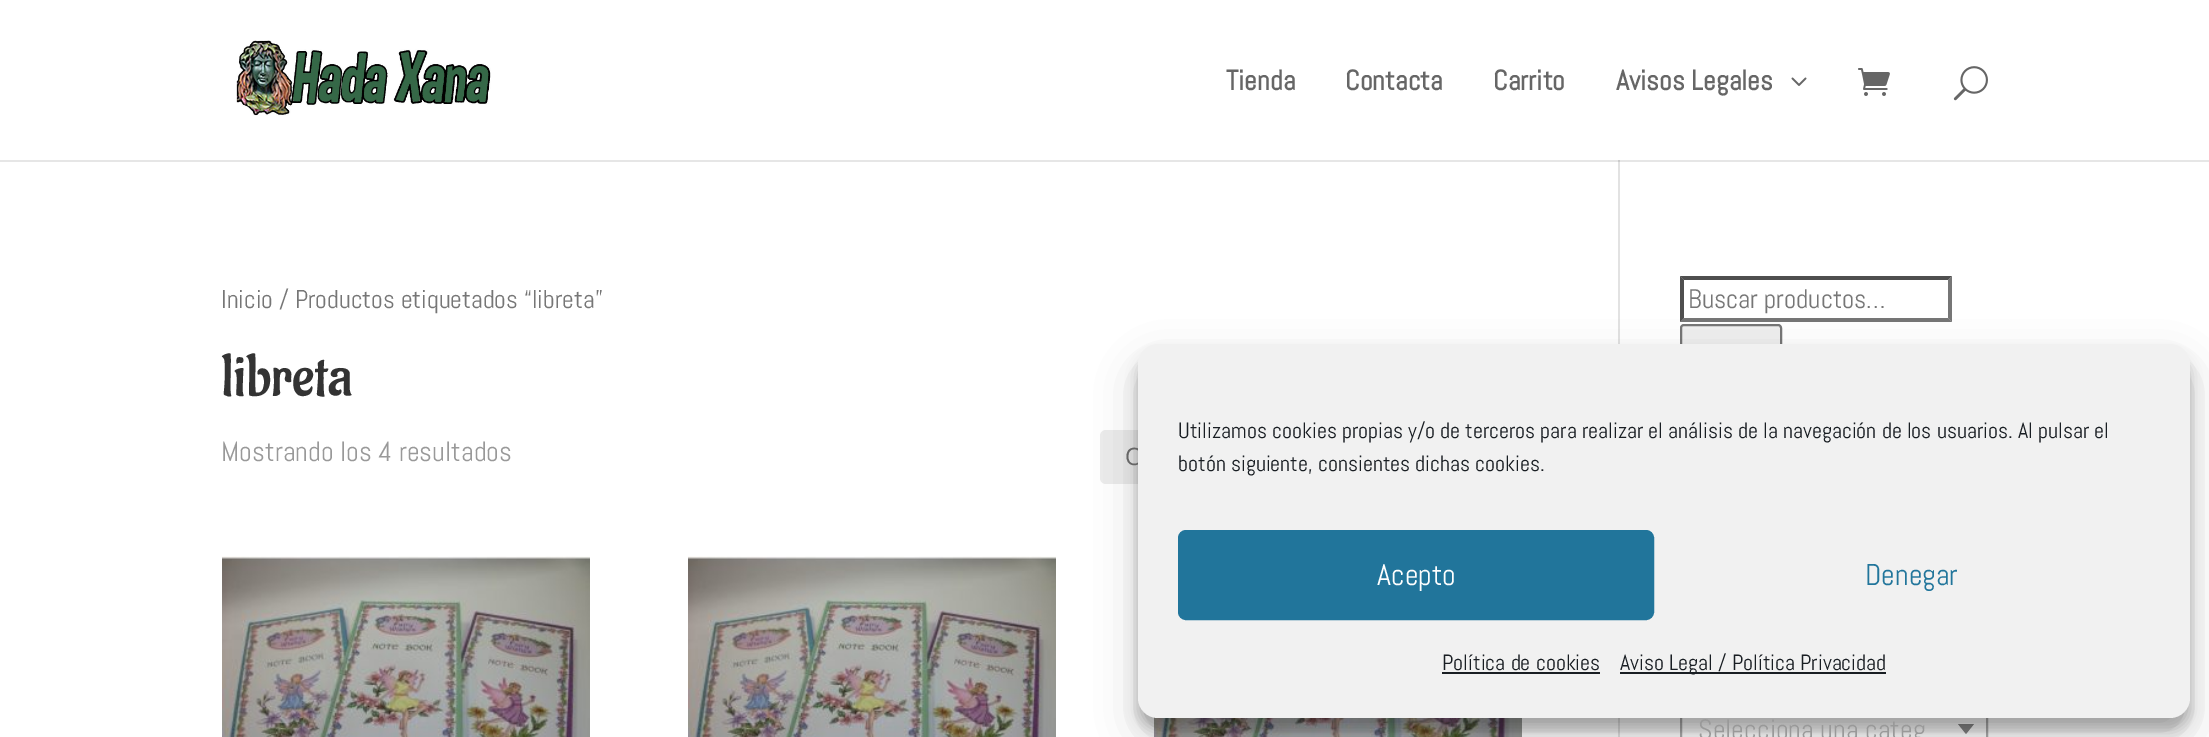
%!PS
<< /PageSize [2209 737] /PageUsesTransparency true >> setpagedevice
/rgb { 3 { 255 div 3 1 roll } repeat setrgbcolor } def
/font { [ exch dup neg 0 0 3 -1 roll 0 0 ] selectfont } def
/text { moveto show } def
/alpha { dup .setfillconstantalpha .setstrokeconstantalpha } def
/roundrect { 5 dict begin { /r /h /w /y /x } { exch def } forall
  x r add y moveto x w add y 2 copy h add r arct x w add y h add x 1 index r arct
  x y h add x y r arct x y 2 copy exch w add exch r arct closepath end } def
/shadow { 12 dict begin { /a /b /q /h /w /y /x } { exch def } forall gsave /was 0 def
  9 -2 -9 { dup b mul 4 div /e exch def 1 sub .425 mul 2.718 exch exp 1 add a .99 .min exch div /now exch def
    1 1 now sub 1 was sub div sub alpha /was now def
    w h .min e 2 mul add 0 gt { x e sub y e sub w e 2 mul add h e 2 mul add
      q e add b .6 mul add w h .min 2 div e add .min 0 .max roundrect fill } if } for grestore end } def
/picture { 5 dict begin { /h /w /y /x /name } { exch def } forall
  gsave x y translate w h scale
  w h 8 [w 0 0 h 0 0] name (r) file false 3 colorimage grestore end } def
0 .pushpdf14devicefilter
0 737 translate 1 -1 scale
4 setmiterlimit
255 255 255 rgb
0 0 2209 737 rectfill
230 230 230 rgb
0 160 2209 2 rectfill
(img_01.rgb) 236 40 255 76 picture
(img_02.rgb) 1791 77 16 9 picture
(img_03.rgb) 1858 68 32 28 picture
(img_04.rgb) 1953 66 35 35 picture
226 226 226 rgb
1618 160 2 577 rectfill
203 203 203 rgb
1618 160 2 2 rectfill
236 236 236 rgb
1100 430 422 54 6 roundrect fill
(img_05.rgb) 222 556 368 181 picture
(img_06.rgb) 688 556 368 181 picture
(img_07.rgb) 1154 717 368 20 picture
79 79 79 rgb
1680 276 moveto 272 0 rlineto -4 4 rlineto -264 0 rlineto closepath fill
118 118 118 rgb
1952 276 moveto 0 46 rlineto -4 -4 rlineto 0 -38 rlineto closepath fill
1952 322 moveto -272 0 rlineto 4 -4 rlineto 264 0 rlineto closepath fill
79 79 79 rgb
1680 322 moveto 0 -46 rlineto 4 4 rlineto 0 38 rlineto closepath fill
239 239 239 rgb
1681 325 100 44 3 roundrect gsave fill grestore
118 118 118 rgb
2 setlinewidth
stroke
170 170 170 rgb
1681 701 306 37 rectstroke
136 136 136 rgb
1958 724 moveto 16 0 rlineto -8 10 rlineto closepath fill
0 0 0 rgb
1138 356 1052 374 20 6 0.23 shadow
1138 364 1052 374 20 20 0.19 shadow
/Abel-Bold 28 font
102 102 102 rgb
(Tienda) 1226 90 text
(Contacta) 1345 90 text
(Carrito) 1493 90 text
(Avisos Legales) 1616 90 text
/Abel-Regular 25.75 font
118 118 118 rgb
(Inicio / Productos etiquetados “libreta”) 221 308 text
/Aladin-Regular 60 font
51 51 51 rgb
(libreta) 221 395 text
/Abel-Regular 28 font
153 153 153 rgb
(Mostrando los 4 resultados) 221 461 text
/OpenSans-Regular 24 font
102 102 102 rgb
(O) 1125 465 text
/Abel-Regular 26.75 font
118 118 118 rgb
(Buscar productos…) 1688 308 text
/Abel-Regular 28 font
153 153 153 rgb
(Selecciona una categ…) 1698 739 text
241 241 241 rgb
1138 344 1052 374 20 roundrect fill
/Abel-Regular 22 font
25 30 35 rgb
(Utilizamos cookies propias y/o de terceros para realizar el análisis de la navegación de los usuarios. Al pulsar el) 1178 438 text
(botón siguiente, consientes dichas cookies.) 1178 471 text
33 117 155 rgb
1179 531 474 88 7 roundrect gsave fill grestore
stroke
/Abel-Regular 30 font
255 255 255 rgb
(Acepto) 1377 585 text
33 117 155 rgb
(Denegar) 1865 585 text
/Abel-Regular 22 font
25 30 35 rgb
(Política de cookies) 1442 670 text
1442 672 158 2 rectfill
1620 672 266 2 rectfill
(Aviso Legal / Política Privacidad) 1620 670 text
.poppdf14devicefilter showpage
